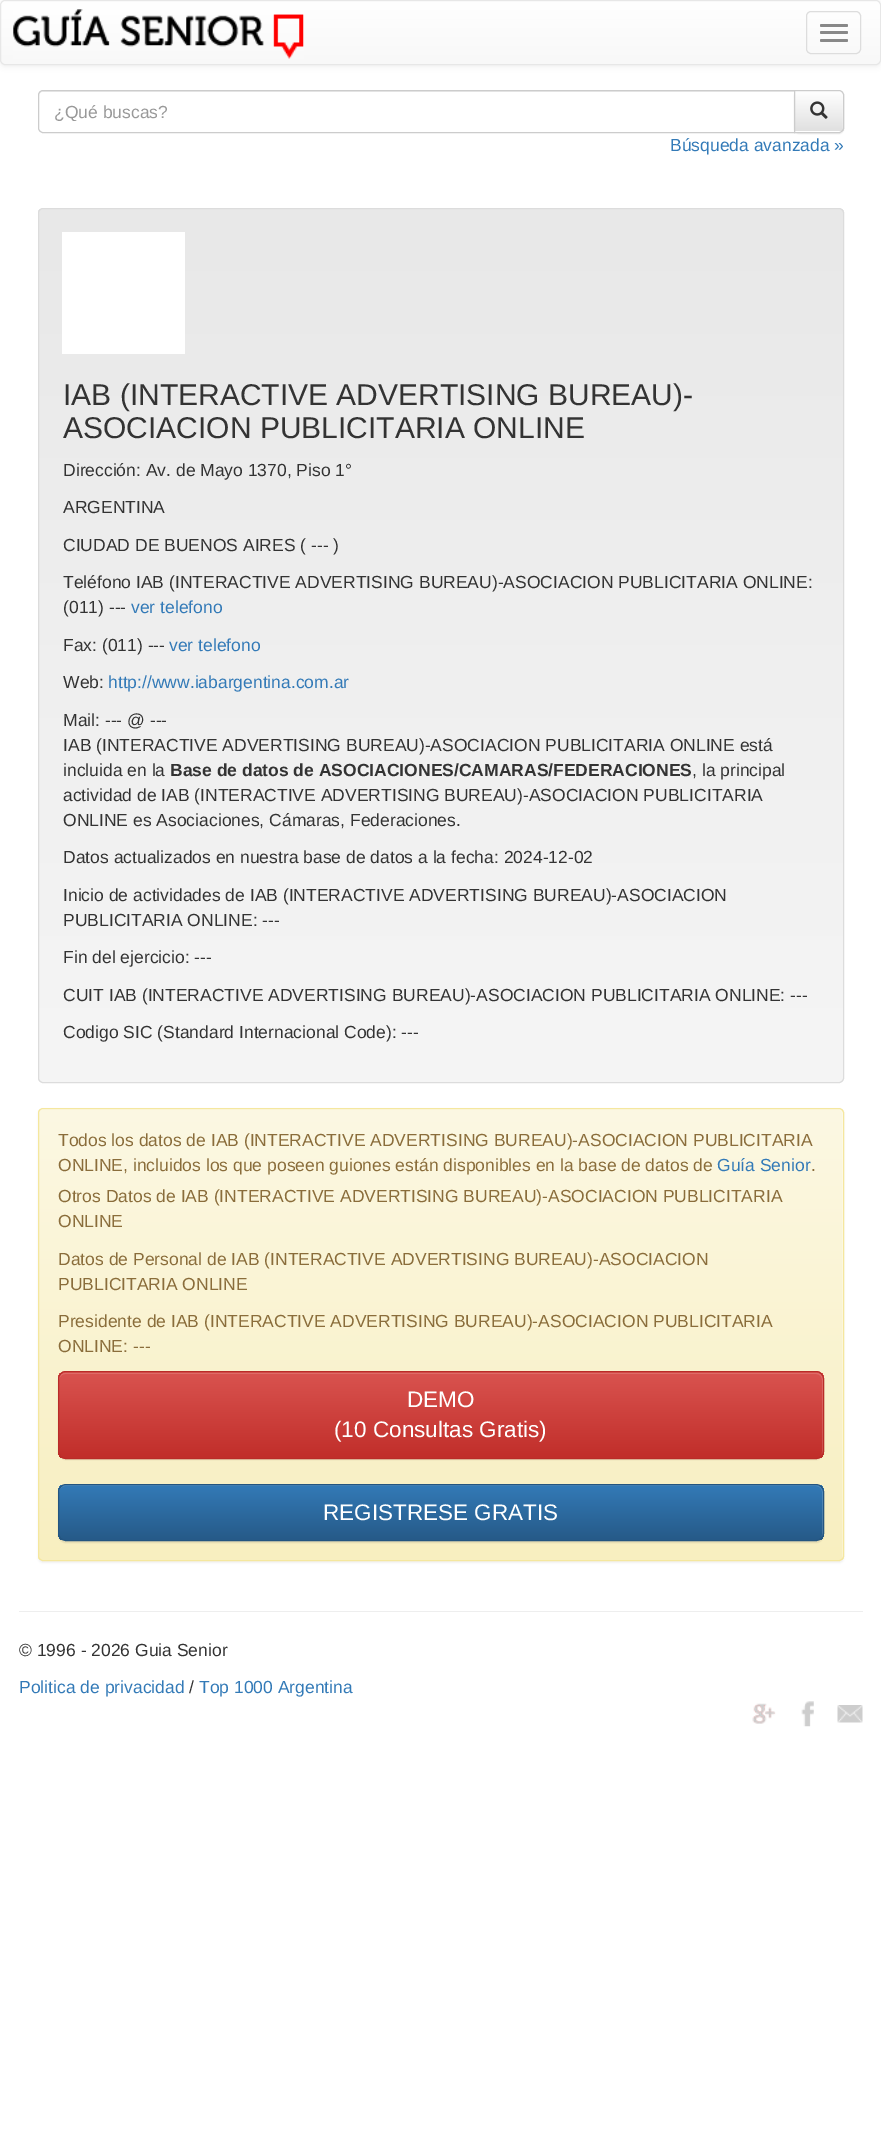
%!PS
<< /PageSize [881 2140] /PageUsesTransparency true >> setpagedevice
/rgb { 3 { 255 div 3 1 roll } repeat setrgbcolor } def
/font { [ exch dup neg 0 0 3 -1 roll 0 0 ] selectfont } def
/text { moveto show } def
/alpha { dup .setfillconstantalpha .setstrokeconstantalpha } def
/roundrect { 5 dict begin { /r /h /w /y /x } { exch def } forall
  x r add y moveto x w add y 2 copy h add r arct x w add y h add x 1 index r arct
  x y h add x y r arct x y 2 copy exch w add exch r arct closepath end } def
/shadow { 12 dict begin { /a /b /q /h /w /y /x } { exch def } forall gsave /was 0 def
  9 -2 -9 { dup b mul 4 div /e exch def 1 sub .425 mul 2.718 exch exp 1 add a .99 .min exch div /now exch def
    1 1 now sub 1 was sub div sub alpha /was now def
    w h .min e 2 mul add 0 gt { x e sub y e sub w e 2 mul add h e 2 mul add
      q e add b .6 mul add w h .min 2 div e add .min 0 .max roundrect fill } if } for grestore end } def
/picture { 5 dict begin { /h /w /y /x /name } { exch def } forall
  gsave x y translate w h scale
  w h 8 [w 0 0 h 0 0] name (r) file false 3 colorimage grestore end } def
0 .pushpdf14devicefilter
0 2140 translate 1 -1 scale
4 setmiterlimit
255 255 255 rgb
0 0 881 2140 rectfill
0 0 0 rgb
0 1 881 65 5 3 0.07 shadow
gsave
0 0 881 65 5 roundrect clip newpath
gsave 0 1 moveto 881 0 rlineto 0 63 rlineto -881 0 rlineto closepath clip newpath
<< /ShadingType 2 /ColorSpace /DeviceRGB /Coords [441 1.2 441 64] /Extend [true true] /Function << /FunctionType 2 /Domain [0 1] /C0 [1 1 1] /C1 [0.973 0.973 0.973] /N 1 >> >> shfill grestore
grestore
231 231 231 rgb
0.5 0.5 880 64 4.5 roundrect stroke
(img_01.rgb) 13 9 291 50 picture
221 221 221 rgb
806.5 11.5 54 42 4.5 roundrect stroke
136 136 136 rgb
820 24 28 3 1.5 roundrect fill
820 31 28 3 1.5 roundrect fill
820 39 28 3 1.5 roundrect fill
236 236 236 rgb
42 92 moveto 752 0 rlineto 0 -1 rlineto -751 0 rlineto -2 0 -4 2 -4 4 rcurveto 0 1 rlineto 0 -2 1 -4 3 -4 rcurveto closepath fill
204 204 204 rgb
43 90.5 moveto 751.5 0 rlineto 0 42 rlineto -751.5 0 rlineto -2.5 0 -4.5 -2 -4.5 -4.5 rcurveto 0 -33 rlineto 0 -2.5 2 -4.5 4.5 -4.5 rcurveto closepath stroke
0 0 0 rgb
794 91 50 43 5 0.5 0.07 shadow
255 255 255 rgb
794 90 moveto 45 0 rlineto 3 0 5 2 5 5 rcurveto 0 33 rlineto 0 3 -2 5 -5 5 rcurveto -45 0 rlineto closepath fill
gsave
794 90 moveto 45 0 rlineto 3 0 5 2 5 5 rcurveto 0 33 rlineto 0 3 -2 5 -5 5 rcurveto -45 0 rlineto closepath clip newpath
gsave 795 91 moveto 49 0 rlineto 0 40 rlineto -49 0 rlineto closepath clip newpath
<< /ShadingType 2 /ColorSpace /DeviceRGB /Coords [819 91 819 131] /Extend [true true] /Function << /FunctionType 2 /Domain [0 1] /C0 [1 1 1] /C1 [0.878 0.878 0.878] /N 1 >> >> shfill grestore
grestore
0.15 alpha
795 92 moveto 45 0 rlineto 4 1 2 13 2 15 rcurveto 0 23 rlineto 1 -1 1 -2 1 -3 rcurveto 0 -32 rlineto 0 -2 -2 -4 -4 -4 rcurveto -44 0 rlineto closepath fill
1 alpha
204 204 204 rgb
794.5 90.5 moveto 44.5 0 rlineto 2.5 0 4.5 2 4.5 4.5 rcurveto 0 33 rlineto 0 2.5 -2 4.5 -4.5 4.5 rcurveto -44.5 0 rlineto closepath stroke
(img_02.rgb) 810 101 18 18 picture
245 245 245 rgb
38 208 806 875 5 roundrect fill
gsave
38 208 806 875 5 roundrect clip newpath
gsave 38 209 moveto 806 0 rlineto 0 872 rlineto -806 0 rlineto closepath clip newpath
<< /ShadingType 2 /ColorSpace /DeviceRGB /Coords [441 209 441 1081] /Extend [true true] /Function << /FunctionType 2 /Domain [0 1] /C0 [0.91 0.91 0.91] /C1 [0.961 0.961 0.961] /N 1 >> >> shfill grestore
grestore
220 220 220 rgb
38.5 208.5 805 874 4.5 roundrect stroke
255 255 255 rgb
62 232 123 122 rectfill
0 0 0 rgb
38 1109 806 454 5 1 0.05 shadow
gsave
38 1108 806 453 5 roundrect clip newpath
gsave 38 1109 moveto 806 0 rlineto 0 451 rlineto -806 0 rlineto closepath clip newpath
<< /ShadingType 2 /ColorSpace /DeviceRGB /Coords [441 1109 441 1560] /Extend [true true] /Function << /FunctionType 2 /Domain [0 1] /C0 [0.988 0.973 0.89] /C1 [0.973 0.937 0.753] /N 1 >> >> shfill grestore
grestore
0.25 alpha
255 255 255 rgb
42 1110 moveto 797 0 rlineto 2 0 3 2 3 4 rcurveto 0 445 rlineto 1 -1 1 -2 1 -3 rcurveto 0 -443 rlineto 0 -2 -2 -4 -4 -4 rcurveto -796 0 rlineto -2 0 -4 2 -4 4 rcurveto 0 1 rlineto 0 -2 1 -4 3 -4 rcurveto closepath fill
1 alpha
245 231 158 rgb
38.5 1108.5 805 452 4.5 roundrect stroke
0 0 0 rgb
58 1373 766 87 8 0.5 0.07 shadow
217 83 79 rgb
58 1371 766 88 8 roundrect fill
gsave
58 1371 766 88 8 roundrect clip newpath
gsave 58 1373 moveto 766 0 rlineto 0 85 rlineto -766 0 rlineto closepath clip newpath
<< /ShadingType 2 /ColorSpace /DeviceRGB /Coords [441 1373 441 1458] /Extend [true true] /Function << /FunctionType 2 /Domain [0 1] /C0 [0.851 0.325 0.31] /C1 [0.757 0.18 0.165] /N 1 >> >> shfill grestore
grestore
0.15 alpha
255 255 255 rgb
65 1374 moveto 751 0 rlineto 4 0 6 3 6 6 rcurveto 0 72 rlineto 0 2 0 3 -1 5 rcurveto 1 -1 2 -3 2 -5 rcurveto 0 -73 rlineto 0 -3 -3 -6 -6 -6 rcurveto -752 0 rlineto -3 0 -6 3 -6 6 rcurveto 0 1 rlineto 0 -3 3 -6 6 -6 rcurveto closepath fill
1 alpha
185 44 40 rgb
58.5 1371.5 765 87 7.5 roundrect stroke
0 0 0 rgb
58 1485 766 58 8 0.5 0.07 shadow
gsave
58 1484 766 57 8 roundrect clip newpath
gsave 58 1485 moveto 766 0 rlineto 0 55 rlineto -766 0 rlineto closepath clip newpath
<< /ShadingType 2 /ColorSpace /DeviceRGB /Coords [441 1485 441 1540] /Extend [true true] /Function << /FunctionType 2 /Domain [0 1] /C0 [0.2 0.478 0.718] /C1 [0.149 0.353 0.533] /N 1 >> >> shfill grestore
grestore
0.15 alpha
255 255 255 rgb
65 1486 moveto 751 0 rlineto 4 0 6 3 6 6 rcurveto 0 43 rlineto 0 1 0 2 -1 3 rcurveto 1 -1 2 -2 2 -4 rcurveto 0 -43 rlineto 0 -3 -3 -6 -6 -6 rcurveto -752 0 rlineto -3 0 -6 3 -6 6 rcurveto 0 1 rlineto 0 -3 3 -6 6 -6 rcurveto closepath fill
1 alpha
36 85 128 rgb
58.5 1484.5 765 56 7.5 roundrect stroke
238 238 238 rgb
19 1611 844 1 rectfill
(img_03.rgb) 752 1703 24 21 picture
(img_04.rgb) 801 1701 13 26 picture
(img_05.rgb) 837 1705 26 18 picture
gsave
54 101 720 20 rectclip
/LiberationSans-Regular 17.5 font
153 153 153 rgb
(¿Qué buscas?) 54 118 text
grestore
/LiberationSans-Regular 17.5 font
51 122 183 rgb
(Búsqueda avanzada ») 670 151 text
/LiberationSans-Regular 30 font
51 51 51 rgb
(IAB \(INTERACTIVE ADVERTISING BUREAU\)-) 63 405 text
(ASOCIACION PUBLICITARIA ONLINE) 63 438 text
/LiberationSans-Regular 17.5 font
(Dirección: Av. de Mayo 1370, Piso 1°) 63 476 text
(ARGENTINA) 63 513 text
(CIUDAD DE BUENOS AIRES \( --- \)) 63 551 text
(Teléfono IAB \(INTERACTIVE ADVERTISING BUREAU\)-ASOCIACION PUBLICITARIA ONLINE:) 63 588 text
(\(011\) ---) 63 613 text
51 122 183 rgb
(ver telefono) 131 613 text
51 51 51 rgb
(Fax: \(011\) ---) 63 651 text
51 122 183 rgb
(ver telefono) 169 651 text
51 51 51 rgb
(Web:) 63 688 text
51 122 183 rgb
(http://www.iabargentina.com.ar) 108 688 text
51 51 51 rgb
(Mail: --- @ ---) 63 726 text
(IAB \(INTERACTIVE ADVERTISING BUREAU\)-ASOCIACION PUBLICITARIA ONLINE está) 63 751 text
(incluida en la) 63 776 text
/LiberationSans-Bold 17.5 font
(Base de datos de ASOCIACIONES/CAMARAS/FEDERACIONES) 170 776 text
/LiberationSans-Regular 17.5 font
(, la principal) 692 776 text
(actividad de IAB \(INTERACTIVE ADVERTISING BUREAU\)-ASOCIACION PUBLICITARIA) 63 801 text
(ONLINE es Asociaciones, Cámaras, Federaciones.) 63 826 text
(Datos actualizados en nuestra base de datos a la fecha: 2024-12-02) 63 863 text
(Inicio de actividades de IAB \(INTERACTIVE ADVERTISING BUREAU\)-ASOCIACION) 63 901 text
(PUBLICITARIA ONLINE: ---) 63 926 text
(Fin del ejercicio: ---) 63 963 text
(CUIT IAB \(INTERACTIVE ADVERTISING BUREAU\)-ASOCIACION PUBLICITARIA ONLINE: ---) 63 1001 text
(Codigo SIC \(Standard Internacional Code\): ---) 63 1038 text
138 109 59 rgb
(Todos los datos de IAB \(INTERACTIVE ADVERTISING BUREAU\)-ASOCIACION PUBLICITARIA) 58 1146 text
(ONLINE, incluidos los que poseen guiones están disponibles en la base de datos de) 58 1171 text
51 122 183 rgb
(Guía Senior) 717 1171 text
138 109 59 rgb
(.) 811 1171 text
(Otros Datos de IAB \(INTERACTIVE ADVERTISING BUREAU\)-ASOCIACION PUBLICITARIA) 58 1202 text
(ONLINE) 58 1227 text
(Datos de Personal de IAB \(INTERACTIVE ADVERTISING BUREAU\)-ASOCIACION) 58 1265 text
(PUBLICITARIA ONLINE) 58 1290 text
(Presidente de IAB \(INTERACTIVE ADVERTISING BUREAU\)-ASOCIACION PUBLICITARIA) 58 1327 text
(ONLINE: ---) 58 1352 text
/LiberationSans-Regular 22.5 font
255 255 255 rgb
(DEMO) 407 1407 text
(\(10 Consultas Gratis\)) 334 1437 text
(REGISTRESE GRATIS) 323 1520 text
/LiberationSans-Regular 17.5 font
51 51 51 rgb
(© 1996 - 2026 Guia Senior) 19 1656 text
51 122 183 rgb
(Politica de privacidad) 19 1693 text
51 51 51 rgb
(/) 189 1693 text
51 122 183 rgb
(Top 1000 Argentina) 199 1693 text
.poppdf14devicefilter showpage
